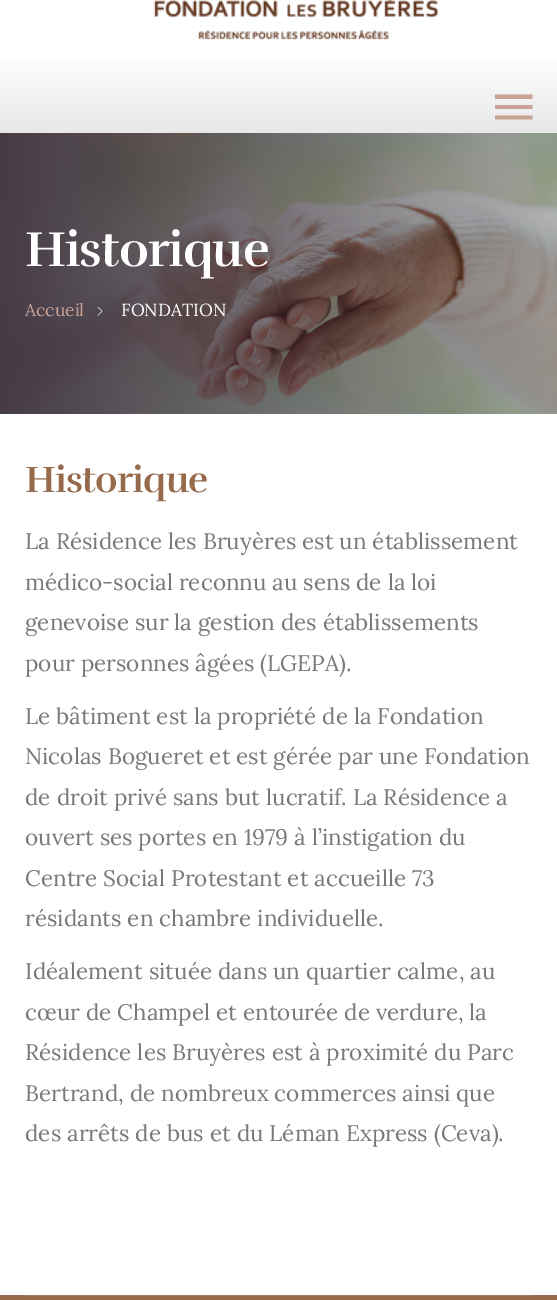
%!PS
<< /PageSize [557 1300] >> setpagedevice
/rgb { 3 { 255 div 3 1 roll } repeat setrgbcolor } def
/font { [ exch dup neg 0 0 3 -1 roll 0 0 ] selectfont } def
/text { moveto show } def
/picture { 5 dict begin { /h /w /y /x /name } { exch def } forall
  gsave x y translate w h scale
  w h 8 [w 0 0 h 0 0] name (r) file false 3 colorimage grestore end } def
0 1300 translate 1 -1 scale
4 setmiterlimit
255 255 255 rgb
0 0 557 1300 rectfill
(img_01.rgb) 153 0 285 40 picture
gsave 0 58 moveto 557 0 rlineto 0 75 rlineto -557 0 rlineto closepath clip newpath
<< /ShadingType 2 /ColorSpace /DeviceRGB /Coords [279 49 279 133] /Extend [true true] /Function << /FunctionType 2 /Domain [0 1] /C0 [1 1 1] /C1 [0.91 0.91 0.91] /N 1 >> >> shfill grestore
200 162 148 rgb
495 119.5 moveto 0 -4 rlineto 37.5 0 rlineto 0 4 rlineto closepath 495 109 moveto 0 -4 rlineto 37.5 0 rlineto 0 4 rlineto closepath 495 94.5 moveto 37.5 0 rlineto 0 4.5 rlineto -37.5 0 rlineto closepath fill
(img_02.rgb) 0 133 557 281 picture
(img_03.rgb) 97 306 6 10 picture
150 106 74 rgb
0 1295 557 5 rectfill
161 121 92 rgb
25 1295 508 1 rectfill
/Rufina-Bold 50 font
255 255 255 rgb
25 266 moveto -1 0 (Historique) ashow
/Lora-Regular 17.5 font
200 162 148 rgb
(Accueil) 25 316 text
255 255 255 rgb
(FONDATION) 121 316 text
/Rufina-Bold 37.5 font
150 106 74 rgb
25 492 moveto -0.75 0 (Historique) ashow
/Lora-Regular 22.5 font
121 121 121 rgb
(La Résidence les Bruyères est un établissement) 25 549 text
(médico-social reconnu au sens de la loi) 25 590 text
(genevoise sur la gestion des établissements) 25 630 text
(pour personnes âgées \(LGEPA\).) 25 671 text
(Le bâtiment est la propriété de la Fondation) 25 724 text
(Nicolas Bogueret et est gérée par une Fondation) 25 764 text
(de droit privé sans but lucratif. La Résidence a) 25 805 text
(ouvert ses portes en 1979 à l’instigation du) 25 845 text
(Centre Social Protestant et accueille 73) 25 886 text
(résidants en chambre individuelle.) 25 926 text
(Idéalement située dans un quartier calme, au) 25 979 text
(cœur de Champel et entourée de verdure, la) 25 1020 text
(Résidence les Bruyères est à proximité du Parc) 25 1060 text
(Bertrand, de nombreux commerces ainsi que) 25 1101 text
(des arrêts de bus et du Léman Express \(Ceva\).) 25 1141 text
showpage
